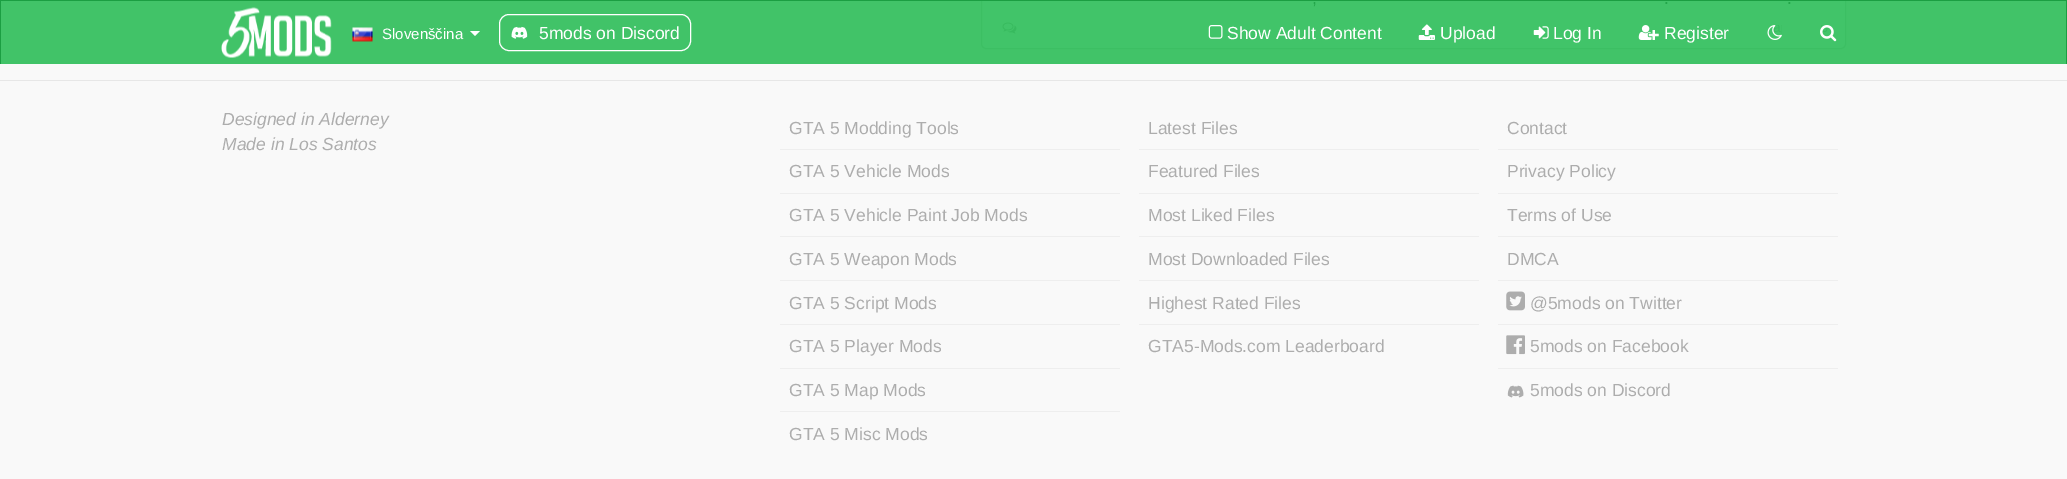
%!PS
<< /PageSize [2067 479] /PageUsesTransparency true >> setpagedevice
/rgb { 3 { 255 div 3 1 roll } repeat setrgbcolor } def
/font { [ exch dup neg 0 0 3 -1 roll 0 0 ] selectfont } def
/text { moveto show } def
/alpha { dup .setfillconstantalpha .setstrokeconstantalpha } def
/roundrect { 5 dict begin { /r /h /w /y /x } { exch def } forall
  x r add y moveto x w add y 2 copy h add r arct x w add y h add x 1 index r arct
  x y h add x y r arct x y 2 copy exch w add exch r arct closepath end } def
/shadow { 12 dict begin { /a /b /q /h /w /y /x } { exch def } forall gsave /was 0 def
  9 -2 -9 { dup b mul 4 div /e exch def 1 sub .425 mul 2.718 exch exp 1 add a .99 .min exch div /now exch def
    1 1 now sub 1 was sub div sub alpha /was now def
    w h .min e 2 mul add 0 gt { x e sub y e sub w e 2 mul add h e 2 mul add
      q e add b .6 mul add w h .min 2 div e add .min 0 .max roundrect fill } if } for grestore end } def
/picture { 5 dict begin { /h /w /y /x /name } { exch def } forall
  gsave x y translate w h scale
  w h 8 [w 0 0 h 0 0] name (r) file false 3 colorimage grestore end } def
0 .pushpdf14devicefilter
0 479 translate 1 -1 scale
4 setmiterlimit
249 249 249 rgb
0 0 2067 479 rectfill
65 195 104 rgb
1 1 2065 63 rectfill
27 158 66 rgb
981 -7 865 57 5 0.5 0.05 shadow
65 196 105 rgb
981.5 -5.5 864 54 4.5 roundrect gsave fill grestore
60 191 99 rgb
stroke
(img_01.rgb) 1002 22 15 12 picture
27 158 66 rgb
0 0 2067 1 rectfill
2066 0 1 64 rectfill
0 0 1 64 rectfill
(img_02.rgb) 221 7 111 51 picture
(img_03.rgb) 352 27 21 15 picture
255 255 255 rgb
470 31 moveto 10 0 rlineto -5 5 rlineto closepath fill
499.5 14.5 191 36 9.5 roundrect stroke
(img_04.rgb) 511 26 17 13 picture
(img_05.rgb) 1208 25 15 14 picture
(img_06.rgb) 1418 24 17 16 picture
(img_07.rgb) 1533 26 16 13 picture
(img_08.rgb) 1638 25 21 15 picture
(img_09.rgb) 1767 25 15 15 picture
(img_10.rgb) 1820 25 17 17 picture
231 231 231 rgb
0 80 2067 1 rectfill
238 238 238 rgb
780 149 340 1 rectfill
780 193 340 1 rectfill
780 236 340 1 rectfill
780 280 340 1 rectfill
780 324 340 1 rectfill
780 368 340 1 rectfill
780 411 340 1 rectfill
1139 149 340 1 rectfill
1139 193 340 1 rectfill
1139 236 340 1 rectfill
1139 280 340 1 rectfill
1139 324 340 1 rectfill
1498 149 340 1 rectfill
1498 193 340 1 rectfill
1498 236 340 1 rectfill
1498 280 340 1 rectfill
1498 324 340 1 rectfill
(img_11.rgb) 1506 291 19 20 picture
1498 368 340 1 rectfill
(img_12.rgb) 1506 335 19 20 picture
(img_13.rgb) 1507 385 17 13 picture
/LiberationSans-Regular 17.5 font
35 166 74 rgb
(,) 1312 4 text
(.) 1664 4 text
(.) 1787 4 text
/LiberationSans-Regular 15 font
255 255 255 rgb
(Slovenščina) 382 39 text
/LiberationSans-Regular 17.5 font
(5mods on Discord) 539 39 text
(Show Adult Content) 1227 39 text
(Upload) 1440 39 text
(Log In) 1553 39 text
(Register) 1664 39 text
/LiberationSans-Italic 17.5 font
173 173 173 rgb
(Designed in Alderney) 222 125 text
(Made in Los Santos) 222 150 text
/LiberationSans-Regular 17.5 font
(GTA 5 Modding Tools) 789 134 text
(GTA 5 Vehicle Mods) 789 177 text
(GTA 5 Vehicle Paint Job Mods) 789 221 text
(GTA 5 Weapon Mods) 789 265 text
(GTA 5 Script Mods) 789 309 text
(GTA 5 Player Mods) 789 352 text
(GTA 5 Map Mods) 789 396 text
(GTA 5 Misc Mods) 789 440 text
(Latest Files) 1148 134 text
(Featured Files) 1148 177 text
(Most Liked Files) 1148 221 text
(Most Downloaded Files) 1148 265 text
(Highest Rated Files) 1148 309 text
(GTA5-Mods.com Leaderboard) 1148 352 text
(Contact) 1507 134 text
(Privacy Policy) 1507 177 text
(Terms of Use) 1507 221 text
(DMCA) 1507 265 text
(@5mods on Twitter) 1530 309 text
(5mods on Facebook) 1530 352 text
(5mods on Discord) 1530 396 text
.poppdf14devicefilter showpage
